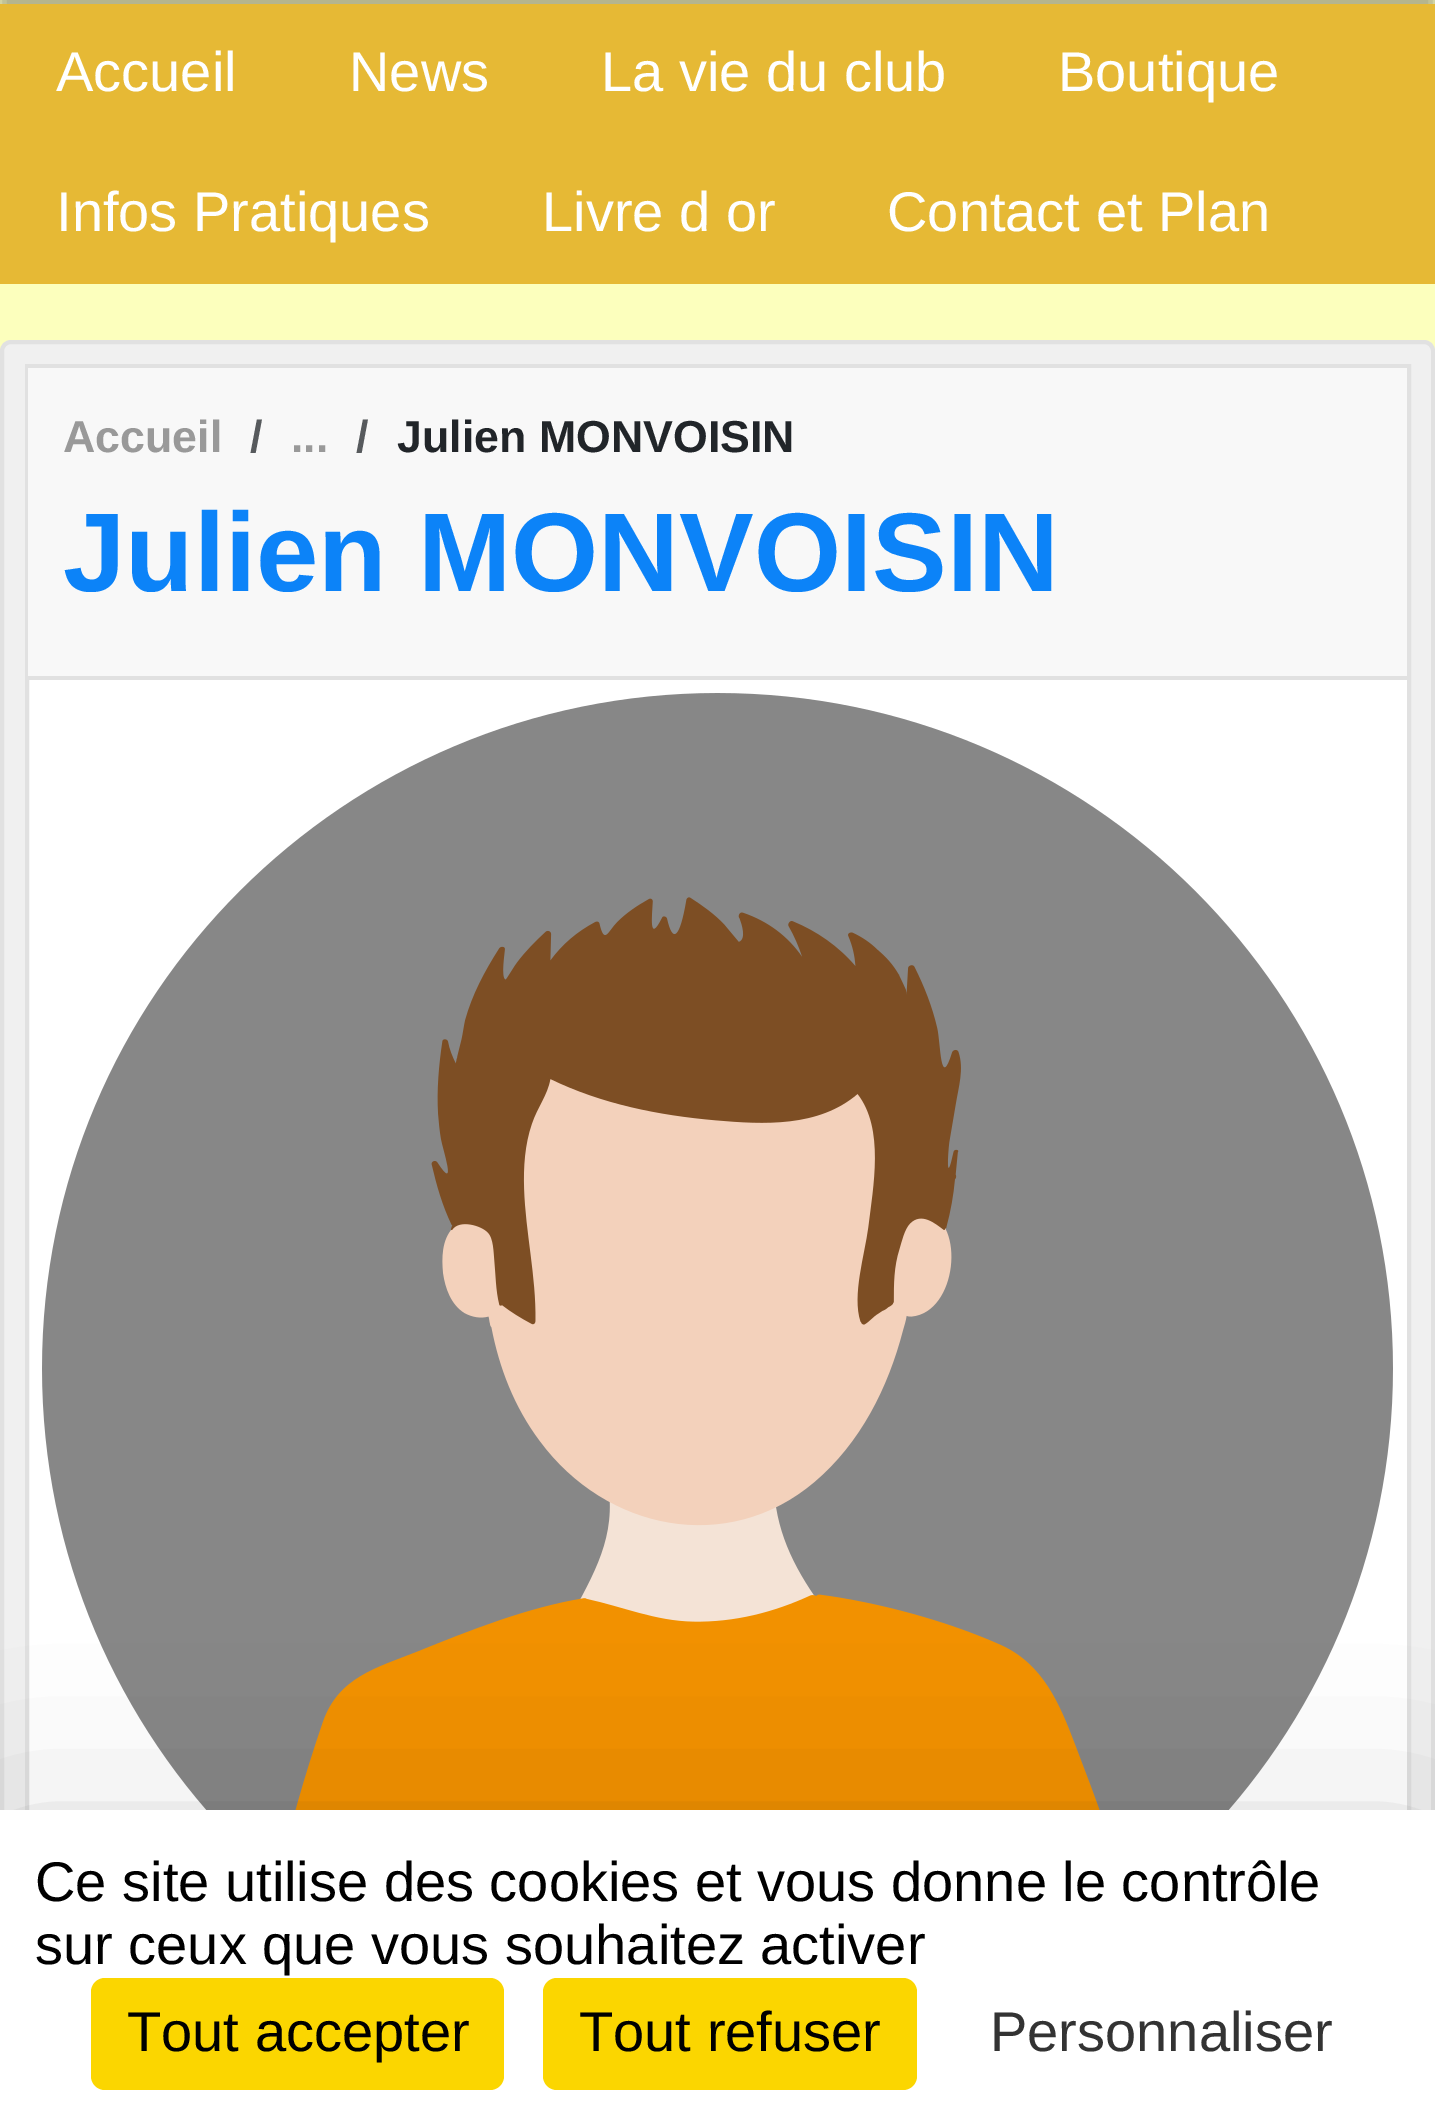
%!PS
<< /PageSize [1435 2124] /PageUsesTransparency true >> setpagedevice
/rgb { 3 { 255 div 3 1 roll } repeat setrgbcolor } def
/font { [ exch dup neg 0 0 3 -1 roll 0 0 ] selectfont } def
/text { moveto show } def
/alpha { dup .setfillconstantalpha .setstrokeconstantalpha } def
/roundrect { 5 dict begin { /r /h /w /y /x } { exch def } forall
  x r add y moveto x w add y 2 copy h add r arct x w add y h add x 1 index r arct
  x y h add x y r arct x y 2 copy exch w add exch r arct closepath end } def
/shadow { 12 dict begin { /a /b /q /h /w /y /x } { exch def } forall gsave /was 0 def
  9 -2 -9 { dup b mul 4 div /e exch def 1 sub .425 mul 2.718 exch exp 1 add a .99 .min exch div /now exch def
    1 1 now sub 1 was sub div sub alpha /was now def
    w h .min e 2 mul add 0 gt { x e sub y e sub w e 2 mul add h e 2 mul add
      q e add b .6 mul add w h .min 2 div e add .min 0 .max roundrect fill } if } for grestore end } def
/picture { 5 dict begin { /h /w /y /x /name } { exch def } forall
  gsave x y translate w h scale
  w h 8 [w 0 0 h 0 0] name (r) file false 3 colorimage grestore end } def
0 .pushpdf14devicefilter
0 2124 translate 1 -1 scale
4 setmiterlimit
252 255 189 rgb
0 0 1435 2124 rectfill
80 80 80 rgb
0 -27 1435 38 0 9 0.5 shadow
230 185 53 rgb
0 4 1435 280 rectfill
240 240 240 rgb
2 342 1431 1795 9 roundrect gsave fill grestore
225 225 225 rgb
4 setlinewidth
stroke
255 255 255 rgb
29 680 1378 1130 rectfill
225 225 225 rgb
27 366 1382 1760 rectstroke
248 248 248 rgb
28 368 1379 308 rectfill
225 225 225 rgb
28 676 1379 4 rectfill
(img_01.rgb) 42 693 1351 1117 picture
0 0 0 rgb
0 1880 1435 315 0 105 0.25 shadow
255 255 255 rgb
0 1810 1435 314 rectfill
251 214 0 rgb
91 1978 413 112 14 roundrect fill
543 1978 374 112 14 roundrect fill
/LiberationSans-Regular 56 font
255 255 255 rgb
(Accueil) 56 91 text
(News) 349 91 text
(La vie du club) 601 91 text
(Boutique) 1058 91 text
(Infos Pratiques) 56 231 text
(Livre d or) 542 231 text
(Contact et Plan) 887 231 text
/LiberationSans-Bold 44.75 font
153 153 153 rgb
(Accueil) 63 452 text
87 90 93 rgb
(/) 250 452 text
153 153 153 rgb
(...) 291 452 text
87 90 93 rgb
(/) 356 452 text
33 37 41 rgb
(Julien MONVOISIN) 397 452 text
/LiberationSans-Bold 112 font
12 131 248 rgb
(Julien MONVOISIN) 63 591 text
/LiberationSans-Regular 56 font
0 0 0 rgb
(Ce site utilise des cookies et vous donne le contrôle) 35 1901 text
(sur ceux que vous souhaitez activer) 35 1964 text
(Tout accepter) 127 2051 text
(Tout refuser) 579 2051 text
51 51 51 rgb
(Personnaliser) 990 2051 text
.poppdf14devicefilter showpage
